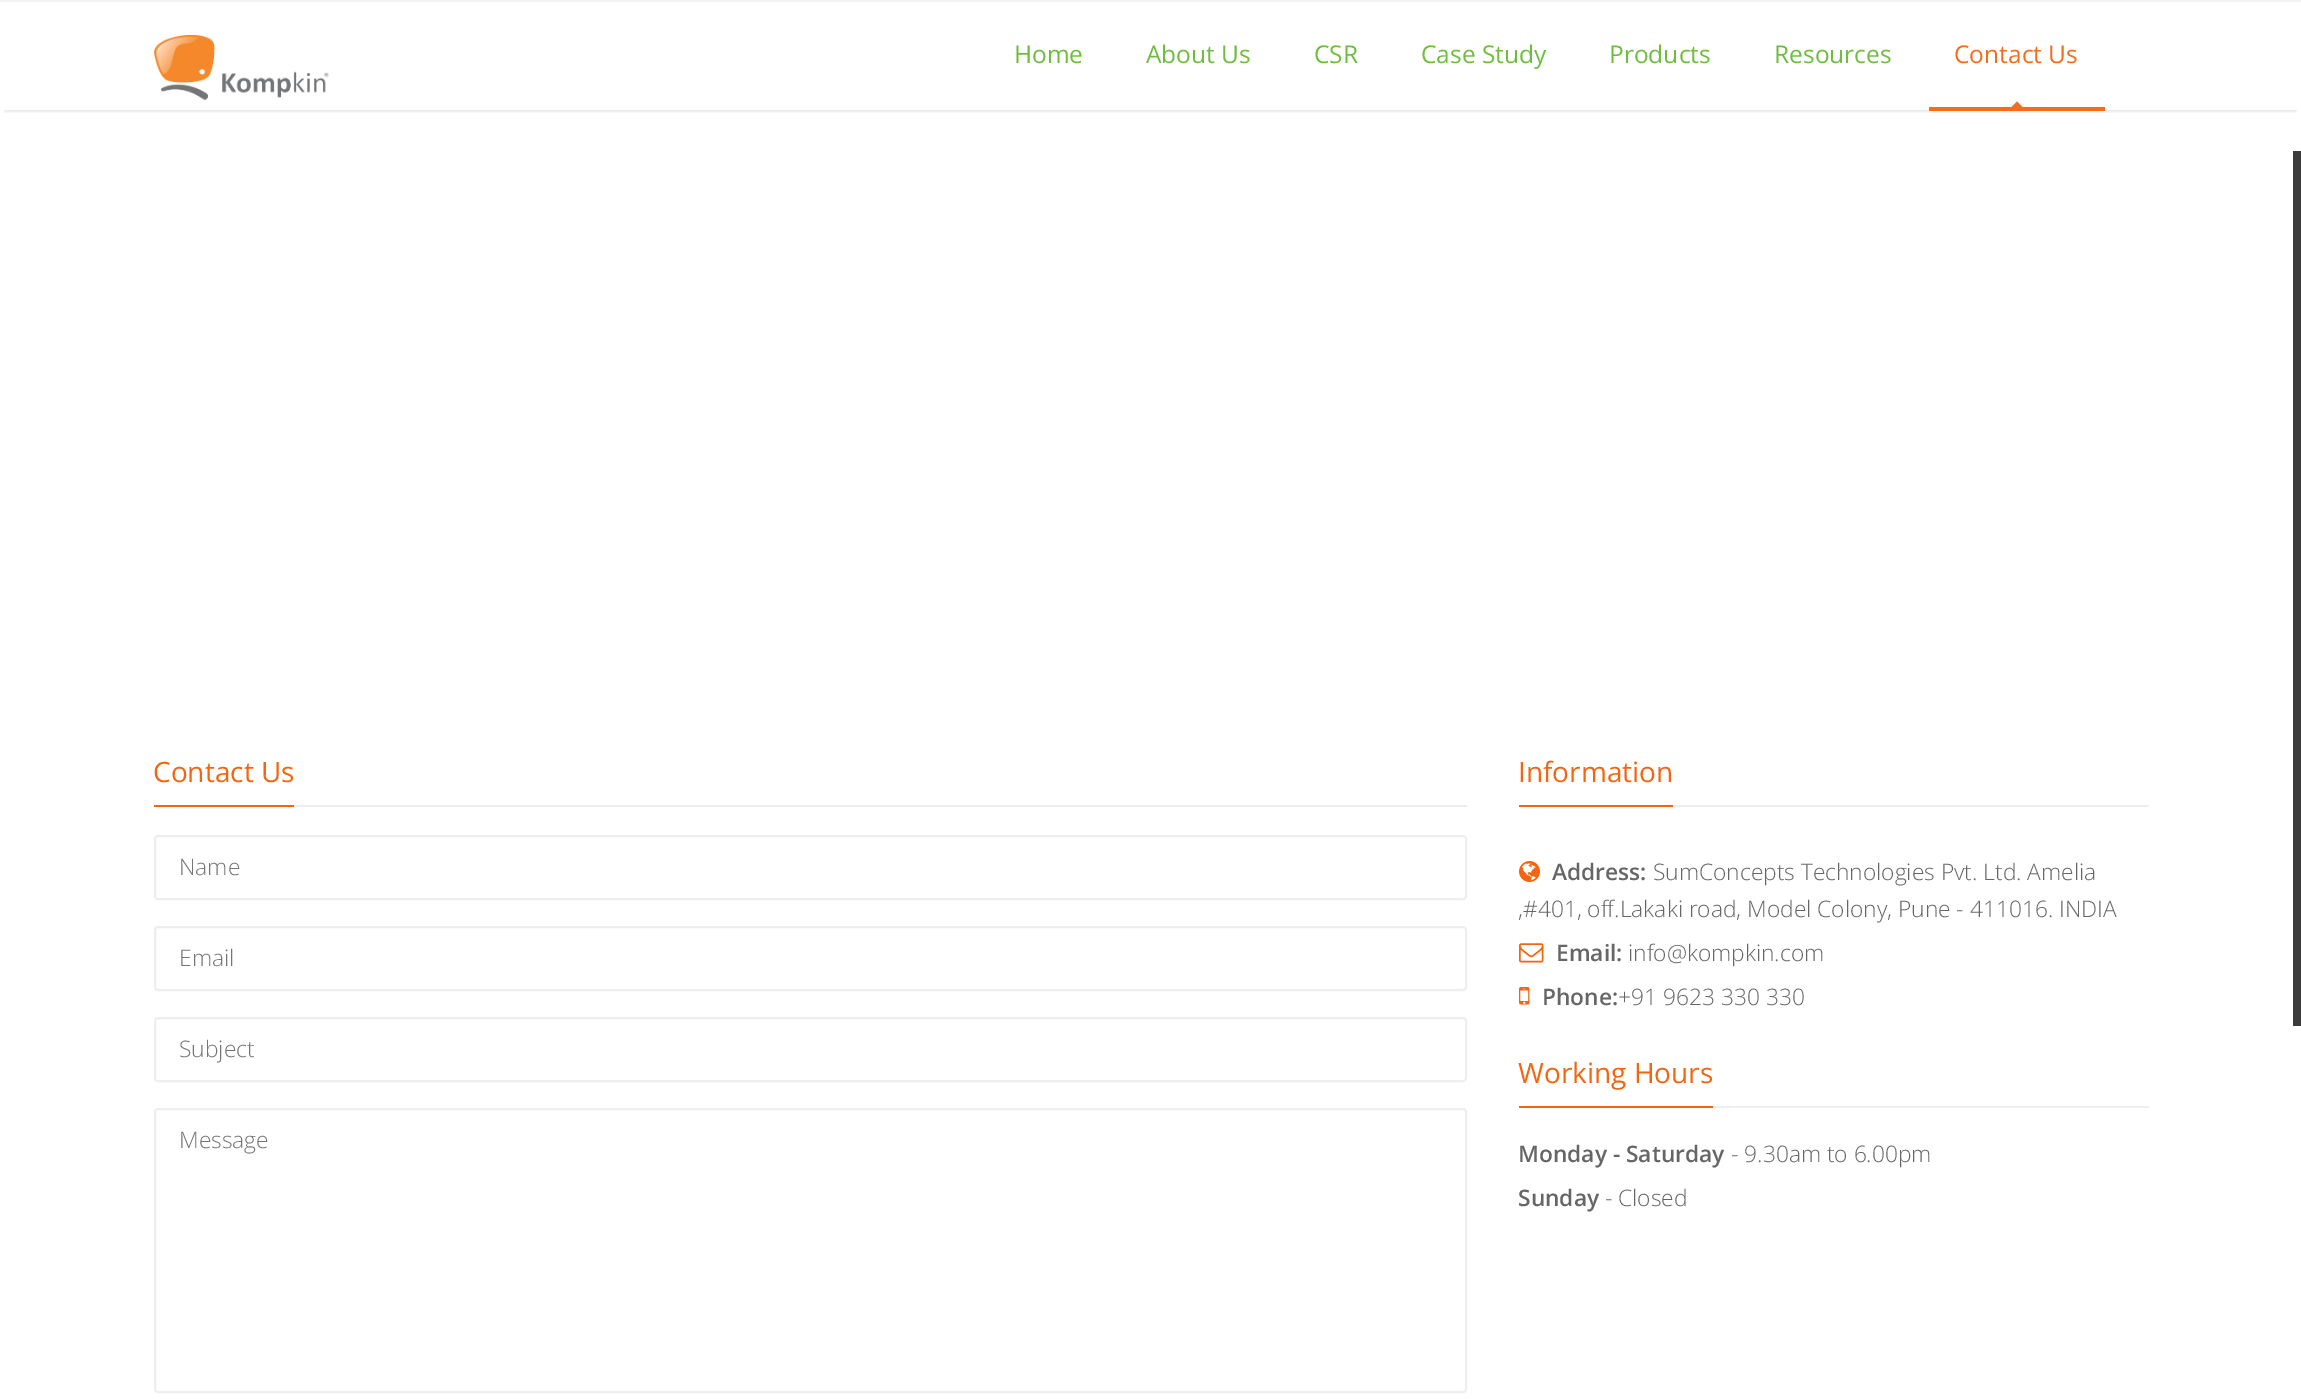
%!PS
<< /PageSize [2301 1399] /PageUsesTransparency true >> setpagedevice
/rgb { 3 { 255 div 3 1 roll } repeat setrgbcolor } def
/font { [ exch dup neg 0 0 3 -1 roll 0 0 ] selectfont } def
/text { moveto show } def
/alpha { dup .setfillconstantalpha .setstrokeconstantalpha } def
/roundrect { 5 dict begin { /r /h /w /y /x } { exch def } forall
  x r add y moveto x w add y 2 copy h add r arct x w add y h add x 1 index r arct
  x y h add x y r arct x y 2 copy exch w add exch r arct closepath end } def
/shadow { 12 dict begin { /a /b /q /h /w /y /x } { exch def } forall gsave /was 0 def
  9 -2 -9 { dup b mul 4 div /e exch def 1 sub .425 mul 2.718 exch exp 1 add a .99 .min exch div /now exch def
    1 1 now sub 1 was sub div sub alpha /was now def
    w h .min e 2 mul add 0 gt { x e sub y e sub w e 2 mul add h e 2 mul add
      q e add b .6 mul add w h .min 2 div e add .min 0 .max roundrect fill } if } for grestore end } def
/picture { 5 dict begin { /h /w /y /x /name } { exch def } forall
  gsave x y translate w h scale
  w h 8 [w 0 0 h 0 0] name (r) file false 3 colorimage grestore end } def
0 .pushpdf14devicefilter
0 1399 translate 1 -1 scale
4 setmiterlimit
255 255 255 rgb
0 0 2301 1399 rectfill
gsave
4 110 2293 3 rectclip
13 13 13 rgb
5 11 2291 99 0 2.5 0.2 shadow
grestore
243 243 243 rgb
0 0 2301 2 rectfill
(img_01.rgb) 154 35 175 66 picture
244 109 28 rgb
1929 107 176 4 rectfill
gsave
1929 2 176 105 rectclip
2017 101.5 moveto 6 6 rlineto -6 6.5 rlineto -6 -6.5 rlineto closepath fill
grestore
238 238 238 rgb
294 805 1173 2 rectfill
243 101 16 rgb
154 805 140 2 rectfill
238 238 238 rgb
2 setlinewidth
155 836 1311 63 3 roundrect stroke
155 927 1311 63 3 roundrect stroke
155 1018 1311 63 3 roundrect stroke
155 1109 1311 283 3 roundrect stroke
1673 805 476 2 rectfill
243 101 16 rgb
1519 805 154 2 rectfill
(img_02.rgb) 1519 861 21 21 picture
(img_03.rgb) 1519 943 25 20 picture
(img_04.rgb) 1519 987 11 18 picture
238 238 238 rgb
1713 1106 436 2 rectfill
243 101 16 rgb
1519 1106 194 2 rectfill
59 59 59 rgb
2293 151 8 875 rectfill
/OpenSans-Regular 24.5 font
110 190 61 rgb
(Home) 1014 63 text
(About Us) 1146 63 text
(CSR) 1314 63 text
(Case Study) 1421 63 text
(Products) 1609 63 text
(Resources) 1774 63 text
244 109 28 rgb
(Contact Us) 1954 63 text
/OpenSans-Regular 28 font
243 101 16 rgb
(Contact Us) 153 782 text
/OpenSans-Light 22.75 font
117 117 117 rgb
(Name) 179 875 text
(Email) 179 966 text
(Subject) 179 1057 text
(Message) 179 1148 text
/OpenSans-Regular 28 font
243 101 16 rgb
(Information) 1518 782 text
/OpenSans-SemiBold 22.75 font
102 102 102 rgb
(Address:) 1552 880 text
/OpenSans-Light 22.75 font
(SumConcepts Technologies Pvt. Ltd. Amelia) 1653 880 text
(,#401, off.Lakaki road, Model Colony, Pune - 411016. INDIA) 1518 917 text
/OpenSans-SemiBold 22.75 font
(Email:) 1556 961 text
/OpenSans-Light 22.75 font
(info@kompkin.com) 1628 961 text
/OpenSans-SemiBold 22.75 font
(Phone:) 1542 1005 text
/OpenSans-Light 22.75 font
(+91 9623 330 330) 1618 1005 text
/OpenSans-Regular 28 font
243 101 16 rgb
(Working Hours) 1518 1083 text
/OpenSans-SemiBold 22.75 font
102 102 102 rgb
(Monday - Saturday) 1518 1162 text
/OpenSans-Light 22.75 font
(- 9.30am to 6.00pm) 1731 1162 text
/OpenSans-SemiBold 22.75 font
(Sunday) 1518 1206 text
/OpenSans-Light 22.75 font
(- Closed) 1605 1206 text
.poppdf14devicefilter showpage
